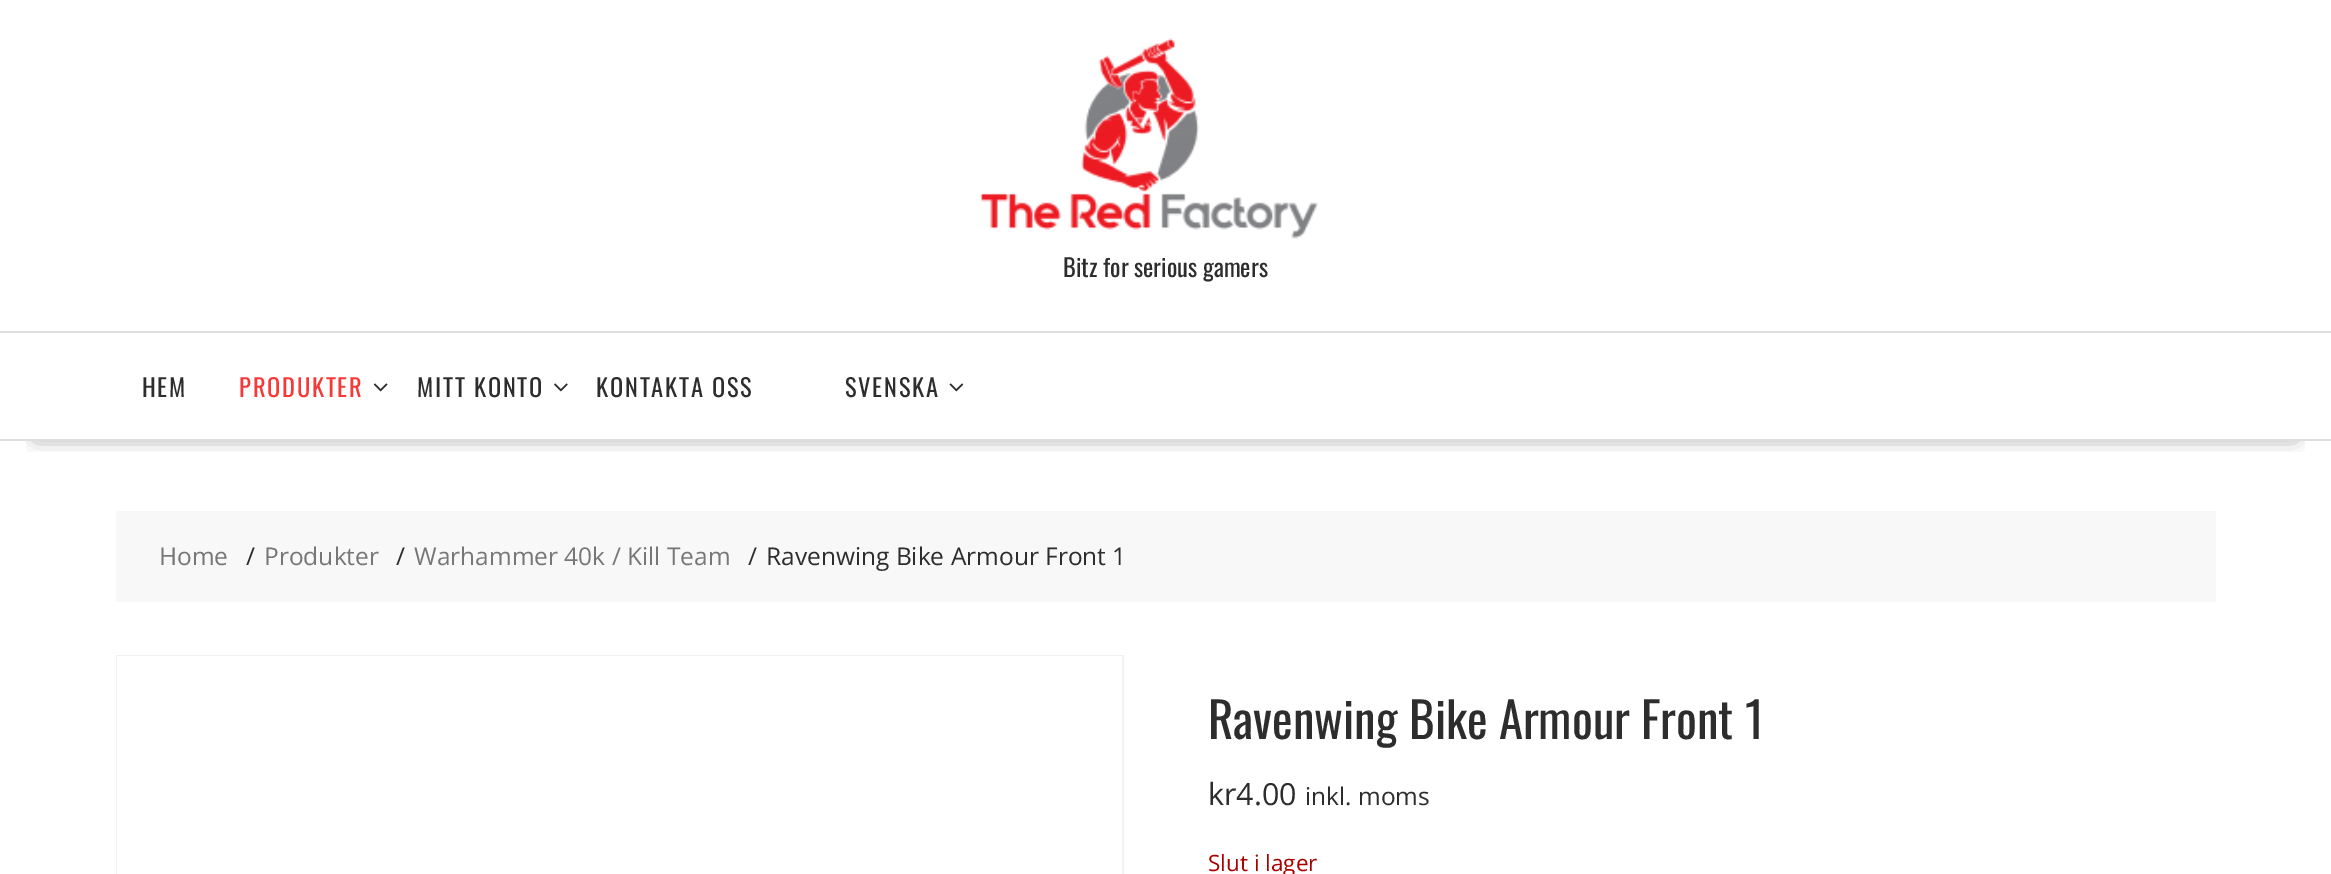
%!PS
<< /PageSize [2331 874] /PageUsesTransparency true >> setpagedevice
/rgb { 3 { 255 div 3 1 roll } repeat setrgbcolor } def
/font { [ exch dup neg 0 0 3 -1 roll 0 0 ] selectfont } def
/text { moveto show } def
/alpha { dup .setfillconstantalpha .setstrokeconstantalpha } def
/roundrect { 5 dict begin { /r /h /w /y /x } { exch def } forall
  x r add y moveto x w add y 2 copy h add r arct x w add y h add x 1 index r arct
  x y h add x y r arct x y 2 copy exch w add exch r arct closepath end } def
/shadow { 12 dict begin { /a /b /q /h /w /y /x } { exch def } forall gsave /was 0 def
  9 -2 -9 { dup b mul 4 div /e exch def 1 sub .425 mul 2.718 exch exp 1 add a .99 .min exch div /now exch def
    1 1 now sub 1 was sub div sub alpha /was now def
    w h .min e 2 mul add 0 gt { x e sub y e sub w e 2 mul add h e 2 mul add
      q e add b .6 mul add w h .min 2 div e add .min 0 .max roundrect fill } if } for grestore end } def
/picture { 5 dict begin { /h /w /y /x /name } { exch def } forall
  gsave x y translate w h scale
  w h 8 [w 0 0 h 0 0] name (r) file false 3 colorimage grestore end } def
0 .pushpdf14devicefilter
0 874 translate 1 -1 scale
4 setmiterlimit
255 255 255 rgb
0 0 2331 874 rectfill
(img_01.rgb) 980 38 339 201 picture
gsave
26 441 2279 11 rectclip
0 0 0 rgb
37 397 2257 37 0 9.5 0.75 shadow
grestore
222 222 222 rgb
0 331 2331 2 rectfill
0 439 2331 2 rectfill
(img_02.rgb) 373 383 15 9 picture
(img_03.rgb) 554 383 14 9 picture
(img_04.rgb) 949 383 15 9 picture
248 248 248 rgb
116 511 2100 91 rectfill
242 242 242 rgb
2 setlinewidth
117 656 1006 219 rectstroke
255 255 255 rgb
117 656 1005 218 rectfill
/Oswald-Regular 24.5 font
45 45 45 rgb
(Bitz for serious gamers) 1063 277 text
142 397 moveto 1.75 0 (HEM) ashow
247 56 56 rgb
239 397 moveto 1.75 0 (PRODUKTER) ashow
45 45 45 rgb
417 397 moveto 1.75 0 (MITT KONTO) ashow
596 397 moveto 1.75 0 (KONTAKTA OSS) ashow
845 397 moveto 1.75 0 (SVENSKA) ashow
/OpenSans-Regular 24.5 font
119 119 119 rgb
(Home) 159 565 text
45 45 45 rgb
(/) 246 565 text
119 119 119 rgb
(Produkter) 264 565 text
45 45 45 rgb
(/) 396 565 text
119 119 119 rgb
(Warhammer 40k / Kill Team) 414 565 text
45 45 45 rgb
(/) 748 565 text
(Ravenwing Bike Armour Front 1) 766 565 text
/Oswald-Regular 49 font
(Ravenwing Bike Armour Front 1) 1208 739 text
/OpenSans-Regular 30.5 font
(kr4.00) 1208 805 text
/OpenSans-Regular 24.5 font
(inkl. moms) 1305 805 text
/OpenSans-Regular 22.5 font
170 0 0 rgb
(Slut i lager) 1208 871 text
.poppdf14devicefilter showpage
